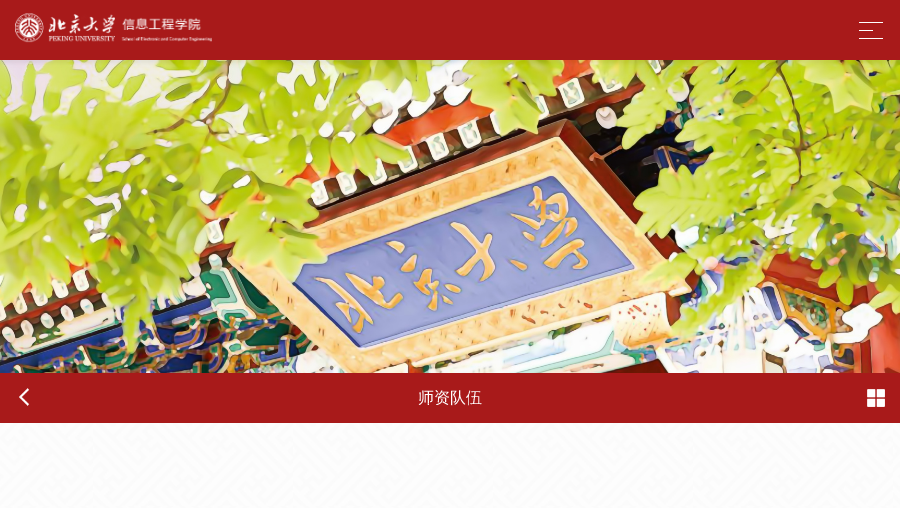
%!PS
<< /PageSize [900 508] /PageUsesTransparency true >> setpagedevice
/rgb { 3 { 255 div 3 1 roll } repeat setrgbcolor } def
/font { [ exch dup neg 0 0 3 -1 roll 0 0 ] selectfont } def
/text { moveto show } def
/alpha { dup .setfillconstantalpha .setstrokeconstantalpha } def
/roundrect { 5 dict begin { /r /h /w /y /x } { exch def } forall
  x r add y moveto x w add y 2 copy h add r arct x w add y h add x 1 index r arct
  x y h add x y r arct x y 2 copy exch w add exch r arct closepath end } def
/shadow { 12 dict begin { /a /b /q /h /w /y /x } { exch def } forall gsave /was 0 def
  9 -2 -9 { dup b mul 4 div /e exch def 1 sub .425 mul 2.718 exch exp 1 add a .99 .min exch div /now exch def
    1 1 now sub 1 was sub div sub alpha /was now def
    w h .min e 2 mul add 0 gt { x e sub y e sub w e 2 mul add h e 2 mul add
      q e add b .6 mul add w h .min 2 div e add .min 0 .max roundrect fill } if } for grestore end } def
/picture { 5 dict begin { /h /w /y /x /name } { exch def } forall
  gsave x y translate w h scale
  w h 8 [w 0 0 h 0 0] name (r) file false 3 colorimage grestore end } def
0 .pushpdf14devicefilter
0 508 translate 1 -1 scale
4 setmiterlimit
255 255 255 rgb
0 0 900 508 rectfill
(img_01.rgb) 0 423 900 85 picture
(img_03.rgb) 0 60 900 313 picture
0 0 0 rgb
0 3 900 60 0 2.5 0.05 shadow
168 26 26 rgb
0 0 900 60 rectfill
(img_02.rgb) 15 13 197 30 picture
255 255 255 rgb
859 30 14 1 rectfill
859 22 24 1 rectfill
859 38 24 1 rectfill
168 26 26 rgb
0 373 900 50 rectfill
(img_04.rgb) 19 388 11 18 picture
(img_05.rgb) 867 389 18 18 picture
/WenQuanYiZenHei-Medium 16 font
255 255 255 rgb
(师资队伍) 418 403 text
.poppdf14devicefilter showpage
